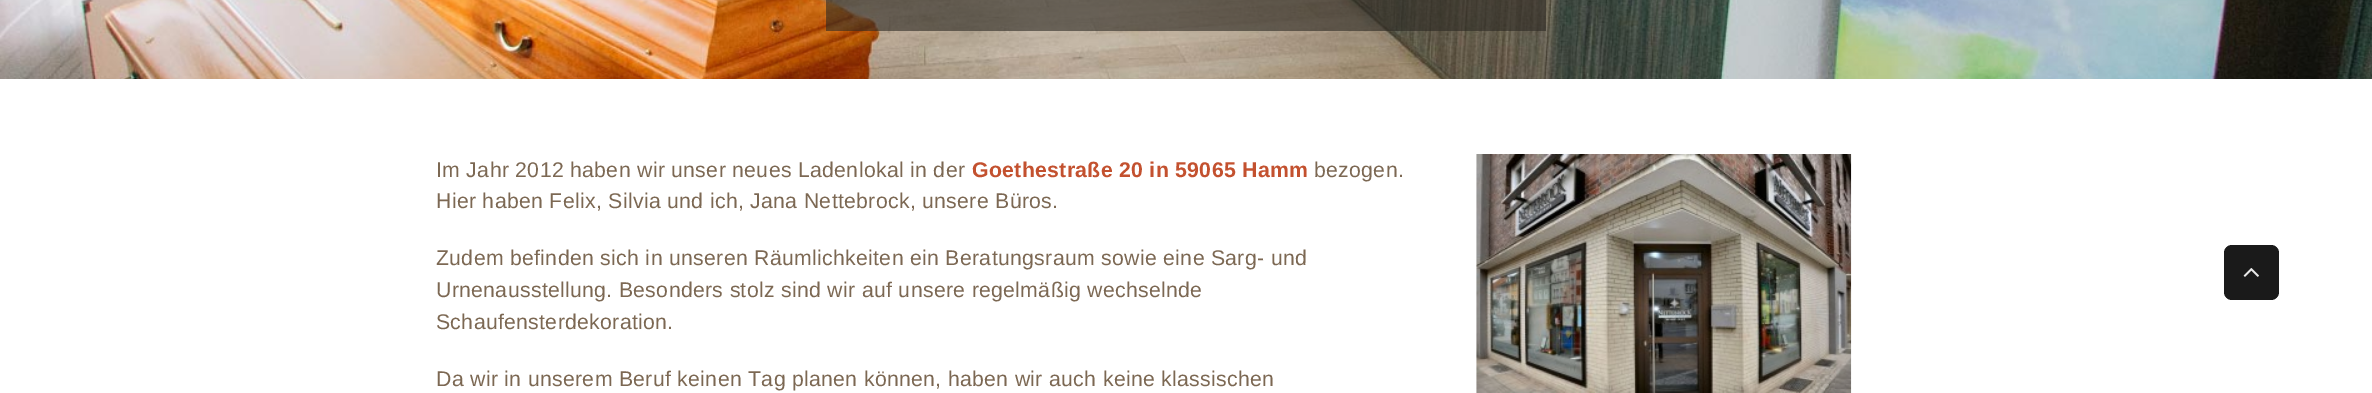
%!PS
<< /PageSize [2372 393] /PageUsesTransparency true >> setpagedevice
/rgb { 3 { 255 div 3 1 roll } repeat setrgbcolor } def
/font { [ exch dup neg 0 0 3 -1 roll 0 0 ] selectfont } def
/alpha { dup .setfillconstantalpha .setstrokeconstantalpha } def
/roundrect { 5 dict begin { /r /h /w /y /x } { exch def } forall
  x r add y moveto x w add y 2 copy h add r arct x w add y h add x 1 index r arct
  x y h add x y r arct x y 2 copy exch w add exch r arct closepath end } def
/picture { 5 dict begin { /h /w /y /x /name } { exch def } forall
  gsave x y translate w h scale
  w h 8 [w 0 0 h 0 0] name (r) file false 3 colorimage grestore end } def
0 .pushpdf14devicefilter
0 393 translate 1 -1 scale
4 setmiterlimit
255 255 255 rgb
0 0 2372 393 rectfill
(img_01.rgb) 0 0 2372 79 picture
0.6 alpha
43 40 34 rgb
826 0 720 31 rectfill
1 alpha
(img_02.rgb) 1476 154 376 239 picture
26 26 26 rgb
2224 245 55 55 8 roundrect fill
(img_03.rgb) 2243 268 16 9 picture
/LiberationSans-Regular 21.25 font
124 104 83 rgb
436 177 moveto 0.32 0 (Im Jahr 2012 haben wir unser neues Ladenlokal in der) ashow
/LiberationSans-Bold 21.25 font
195 81 47 rgb
972 177 moveto 0.32 0 (Goethestraße 20 in 59065 Hamm) ashow
/LiberationSans-Regular 21.25 font
124 104 83 rgb
1314 177 moveto 0.32 0 (bezogen.) ashow
436 208 moveto 0.32 0 (Hier haben Felix, Silvia und ich, Jana Nettebrock, unsere Büros.) ashow
436 265 moveto 0.32 0 (Zudem befinden sich in unseren Räumlichkeiten ein Beratungsraum sowie eine Sarg- und) ashow
436 297 moveto 0.32 0 (Urnenausstellung. Besonders stolz sind wir auf unsere regelmäßig wechselnde) ashow
436 329 moveto 0.32 0 (Schaufensterdekoration.) ashow
436 386 moveto 0.32 0 (Da wir in unserem Beruf keinen Tag planen können, haben wir auch keine klassischen) ashow
.poppdf14devicefilter showpage
